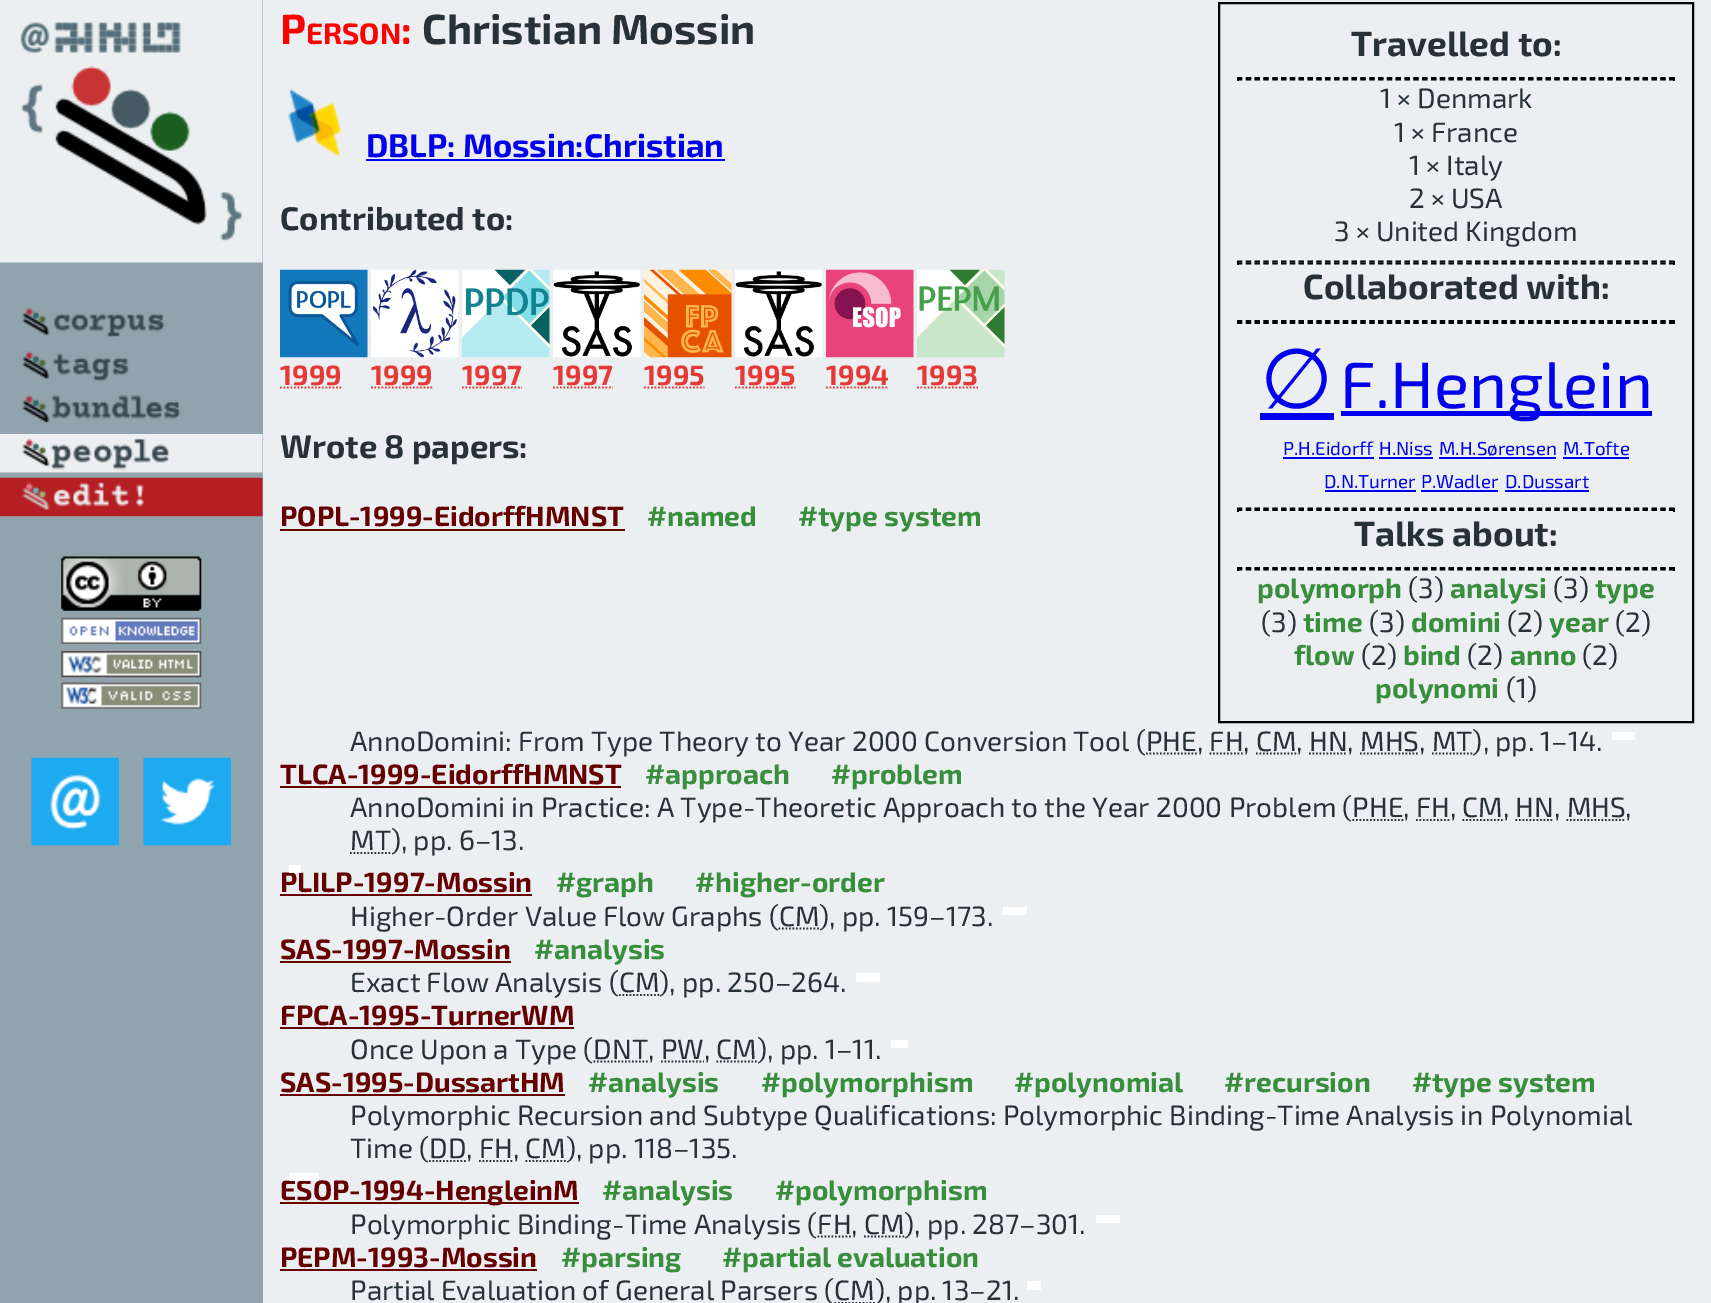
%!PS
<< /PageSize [1711 1303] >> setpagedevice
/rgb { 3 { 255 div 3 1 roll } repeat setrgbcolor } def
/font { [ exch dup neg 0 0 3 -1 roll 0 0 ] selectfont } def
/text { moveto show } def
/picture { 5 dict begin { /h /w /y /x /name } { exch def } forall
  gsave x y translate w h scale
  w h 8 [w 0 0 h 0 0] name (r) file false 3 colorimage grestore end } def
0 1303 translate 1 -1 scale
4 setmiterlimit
236 239 241 rgb
0 0 1711 1303 rectfill
144 164 174 rgb
0 0 263 1303 rectfill
(img_01.rgb) 0 0 263 263 picture
(img_02.rgb) 22 307 143 30 picture
(img_03.rgb) 22 351 107 31 picture
(img_04.rgb) 22 395 159 29 picture
(img_05.rgb) 0 434 263 39 picture
(img_06.rgb) 0 477 263 40 picture
(img_07.rgb) 61 556 141 55 picture
(img_08.rgb) 61 617 141 27 picture
(img_09.rgb) 61 651 141 27 picture
(img_10.rgb) 61 682 141 27 picture
(img_11.rgb) 31 757 88 89 picture
(img_12.rgb) 143 757 88 89 picture
0 0 0 rgb
2 setlinewidth
1219 3 474 719 rectstroke
1.8 setlinewidth
[5.25 3.57] 0 setdash
1237 78 moveto 438 0 rlineto stroke
1673 77 2 4 rectfill
1237 79.5 moveto 438 0 rlineto stroke
1237 77 2 4 rectfill
1237 261.5 moveto 438 0 rlineto stroke
1673 261 2 4 rectfill
1237 263.5 moveto 438 0 rlineto stroke
1237 261 2 4 rectfill
1237 321 moveto 438 0 rlineto stroke
1673 320 2 4 rectfill
1237 323 moveto 438 0 rlineto stroke
1237 320 2 4 rectfill
0 0 238 rgb
1260 413 74 7 rectfill
1341 411 311 5 rectfill
1283 457 91 2 rectfill
1379 457 54 2 rectfill
1439 457 117 2 rectfill
1563 457 66 2 rectfill
1325 490 91 2 rectfill
1421 490 77 2 rectfill
1505 490 84 2 rectfill
0 0 0 rgb
1237 508.5 moveto 438 0 rlineto stroke
1673 508 2 4 rectfill
1237 510 moveto 438 0 rlineto stroke
1237 508 2 4 rectfill
1237 568 moveto 438 0 rlineto stroke
1673 567 2 4 rectfill
1237 569.5 moveto 438 0 rlineto stroke
1237 567 2 4 rectfill
(img_13.rgb) 288 89 54 68 picture
0 0 238 rgb
366 159 359 2 rectfill
(img_14.rgb) 280 269 88 89 picture
229 57 53 rgb
[1.75 1.75] 0 setdash
280 387.5 moveto 61.5 0 rlineto stroke
(img_15.rgb) 371 269 88 89 picture
371 387.5 moveto 61.5 0 rlineto stroke
(img_16.rgb) 462 269 88 89 picture
462 387.5 moveto 60 0 rlineto stroke
(img_17.rgb) 553 269 88 89 picture
553 387.5 moveto 60 0 rlineto stroke
(img_18.rgb) 644 269 88 89 picture
644 387.5 moveto 60.5 0 rlineto stroke
(img_19.rgb) 735 269 88 89 picture
735 387.5 moveto 60.5 0 rlineto stroke
(img_20.rgb) 826 269 88 89 picture
826 387.5 moveto 63 0 rlineto stroke
(img_21.rgb) 917 269 88 89 picture
917 387.5 moveto 61 0 rlineto stroke
102 0 0 rgb
280 529 345 2 rectfill
38 50 56 rgb
1146 753.5 moveto 51 0 rlineto stroke
1209.5 753.5 moveto 34 0 rlineto stroke
1256 753.5 moveto 40.5 0 rlineto stroke
1309 753.5 moveto 38.5 0 rlineto stroke
1360 753.5 moveto 59 0 rlineto stroke
1432 753.5 moveto 40.5 0 rlineto stroke
255 255 255 rgb
1612 732 23 8 rectfill
102 0 0 rgb
280 786 341 2 rectfill
38 50 56 rgb
1352.5 820 moveto 51 0 rlineto stroke
1416 820 moveto 34 0 rlineto stroke
1462.5 820 moveto 40.5 0 rlineto stroke
1515.5 820 moveto 38.5 0 rlineto stroke
1566.5 820 moveto 59 0 rlineto stroke
350 853 moveto 41 0 rlineto stroke
102 0 0 rgb
280 894 252 2 rectfill
38 50 56 rgb
778.5 928.5 moveto 40.5 0 rlineto stroke
255 255 255 rgb
1003 907 24 8 rectfill
102 0 0 rgb
280 961 231 2 rectfill
38 50 56 rgb
619 995 moveto 40.5 0 rlineto stroke
255 255 255 rgb
856 973 24 9 rectfill
102 0 0 rgb
280 1027 294 2 rectfill
38 50 56 rgb
593.5 1061.5 moveto 54.5 0 rlineto stroke
661 1061.5 moveto 43 0 rlineto stroke
716.5 1061.5 moveto 40.5 0 rlineto stroke
255 255 255 rgb
891 1040 17 8 rectfill
102 0 0 rgb
280 1094 285 2 rectfill
38 50 56 rgb
429 1161 moveto 37.5 0 rlineto stroke
479 1161 moveto 33.5 0 rlineto stroke
525.5 1161 moveto 40.5 0 rlineto stroke
102 0 0 rgb
280 1202 299 2 rectfill
38 50 56 rgb
817.5 1236.5 moveto 34 0 rlineto stroke
864 1236.5 moveto 40.5 0 rlineto stroke
255 255 255 rgb
1096 1215 24 8 rectfill
102 0 0 rgb
280 1269 257 2 rectfill
38 50 56 rgb
834.5 1303 moveto 40.5 0 rlineto stroke
255 255 255 rgb
1027 1281 14 9 rectfill
/Exo2-Bold 42 font
255 0 0 rgb
(P) 280 44 text
/Exo2-Bold 29.5 font
(ERSON) 306 44 text
/Exo2-Bold 42 font
(:) 401 44 text
38 50 56 rgb
(Christian Mossin) 422 44 text
/Exo2-Bold 35 font
(Travelled to:) 1351 56 text
/Exo2-Regular 28 font
(1 × Denmark) 1380 108 text
(1 × France) 1394 142 text
(1 × Italy) 1409 175 text
(2 × USA) 1409 208 text
(3 × United Kingdom) 1334 241 text
/Exo2-Bold 35 font
(Collaborated with:) 1303 299 text
/DejaVuSans-Regular 84 font
0 0 238 rgb
(∅) 1260 408 text
/Exo2-Regular 65.5 font
(F.Henglein) 1340 408 text
/Exo2-Regular 18.75 font
(P.H.Eidorff) 1283 455 text
(H.Niss) 1379 455 text
(M.H.Sørensen) 1439 455 text
(M.Tofte) 1563 455 text
(D.N.Turner) 1324 488 text
(P.Wadler) 1421 488 text
(D.Dussart) 1505 488 text
/Exo2-Bold 35 font
38 50 56 rgb
(Talks about:) 1354 546 text
/Exo2-Bold 28 font
56 142 60 rgb
(polymorph) 1257 598 text
/Exo2-Regular 28 font
38 50 56 rgb
(\(3\)) 1408 598 text
/Exo2-Bold 28 font
56 142 60 rgb
(analysi) 1450 598 text
/Exo2-Regular 28 font
38 50 56 rgb
(\(3\)) 1553 598 text
/Exo2-Bold 28 font
56 142 60 rgb
(type) 1595 598 text
/Exo2-Regular 28 font
38 50 56 rgb
(\(3\)) 1261 632 text
/Exo2-Bold 28 font
56 142 60 rgb
(time) 1303 632 text
/Exo2-Regular 28 font
38 50 56 rgb
(\(3\)) 1369 632 text
/Exo2-Bold 28 font
56 142 60 rgb
(domini) 1411 632 text
/Exo2-Regular 28 font
38 50 56 rgb
(\(2\)) 1507 632 text
/Exo2-Bold 28 font
56 142 60 rgb
(year) 1549 632 text
/Exo2-Regular 28 font
38 50 56 rgb
(\(2\)) 1615 632 text
/Exo2-Bold 28 font
56 142 60 rgb
(flow) 1294 665 text
/Exo2-Regular 28 font
38 50 56 rgb
(\(2\)) 1361 665 text
/Exo2-Bold 28 font
56 142 60 rgb
(bind) 1403 665 text
/Exo2-Regular 28 font
38 50 56 rgb
(\(2\)) 1467 665 text
/Exo2-Bold 28 font
56 142 60 rgb
(anno) 1510 665 text
/Exo2-Regular 28 font
38 50 56 rgb
(\(2\)) 1582 665 text
/Exo2-Bold 28 font
56 142 60 rgb
(polynomi) 1375 698 text
/Exo2-Regular 28 font
38 50 56 rgb
(\(1\)) 1506 698 text
/Exo2-Bold 32.75 font
0 0 238 rgb
(DBLP: Mossin:Christian) 366 157 text
38 50 56 rgb
(Contributed to:) 280 230 text
/Exo2-Bold 28 font
229 57 53 rgb
(1999) 280 385 text
(1999) 371 385 text
(1997) 462 385 text
(1997) 553 385 text
(1995) 644 385 text
(1995) 735 385 text
(1994) 826 385 text
(1993) 917 385 text
/Exo2-Bold 32.75 font
38 50 56 rgb
(Wrote 8 papers:) 280 458 text
/Exo2-Bold 28 font
102 0 0 rgb
(POPL-1999-EidorffHMNST) 280 526 text
56 142 60 rgb
(#named) 647 526 text
(#type system) 798 526 text
/Exo2-Regular 28 font
38 50 56 rgb
(AnnoDomini: From Type Theory to Year 2000 Conversion Tool \(PHE, FH, CM, HN, MHS, MT\), pp. 1–14.) 350 751 text
/Exo2-Bold 28 font
102 0 0 rgb
(TLCA-1999-EidorffHMNST) 280 784 text
56 142 60 rgb
(#approach) 645 784 text
(#problem) 831 784 text
/Exo2-Regular 28 font
38 50 56 rgb
(AnnoDomini in Practice: A Type-Theoretic Approach to the Year 2000 Problem \(PHE, FH, CM, HN, MHS,) 350 817 text
(MT\), pp. 6–13.) 350 850 text
/Exo2-Bold 28 font
102 0 0 rgb
(PLILP-1997-Mossin) 280 892 text
255 255 255 rgb
289 865 12 8 rectfill
56 142 60 rgb
(#graph) 556 892 text
(#higher-order) 695 892 text
/Exo2-Regular 28 font
38 50 56 rgb
(Higher-Order Value Flow Graphs \(CM\), pp. 159–173.) 350 926 text
/Exo2-Bold 28 font
102 0 0 rgb
(SAS-1997-Mossin) 280 959 text
56 142 60 rgb
(#analysis) 534 959 text
/Exo2-Regular 28 font
38 50 56 rgb
(Exact Flow Analysis \(CM\), pp. 250–264.) 350 992 text
/Exo2-Bold 28 font
102 0 0 rgb
(FPCA-1995-TurnerWM) 280 1025 text
/Exo2-Regular 28 font
38 50 56 rgb
(Once Upon a Type \(DNT, PW, CM\), pp. 1–11.) 350 1059 text
/Exo2-Bold 28 font
102 0 0 rgb
(SAS-1995-DussartHM) 280 1092 text
56 142 60 rgb
(#analysis) 588 1092 text
(#polymorphism) 761 1092 text
(#polynomial) 1014 1092 text
(#recursion) 1224 1092 text
(#type system) 1412 1092 text
/Exo2-Regular 28 font
38 50 56 rgb
(Polymorphic Recursion and Subtype Qualifications: Polymorphic Binding-Time Analysis in Polynomial) 350 1125 text
(Time \(DD, FH, CM\), pp. 118–135.) 350 1158 text
/Exo2-Bold 28 font
102 0 0 rgb
(ESOP-1994-HengleinM) 280 1200 text
255 255 255 rgb
289 1173 30 8 rectfill
56 142 60 rgb
(#analysis) 602 1200 text
(#polymorphism) 775 1200 text
/Exo2-Regular 28 font
38 50 56 rgb
(Polymorphic Binding-Time Analysis \(FH, CM\), pp. 287–301.) 350 1234 text
/Exo2-Bold 28 font
102 0 0 rgb
(PEPM-1993-Mossin) 280 1267 text
56 142 60 rgb
(#parsing) 561 1267 text
(#partial evaluation) 722 1267 text
/Exo2-Regular 28 font
38 50 56 rgb
(Partial Evaluation of General Parsers \(CM\), pp. 13–21.) 350 1300 text
showpage
